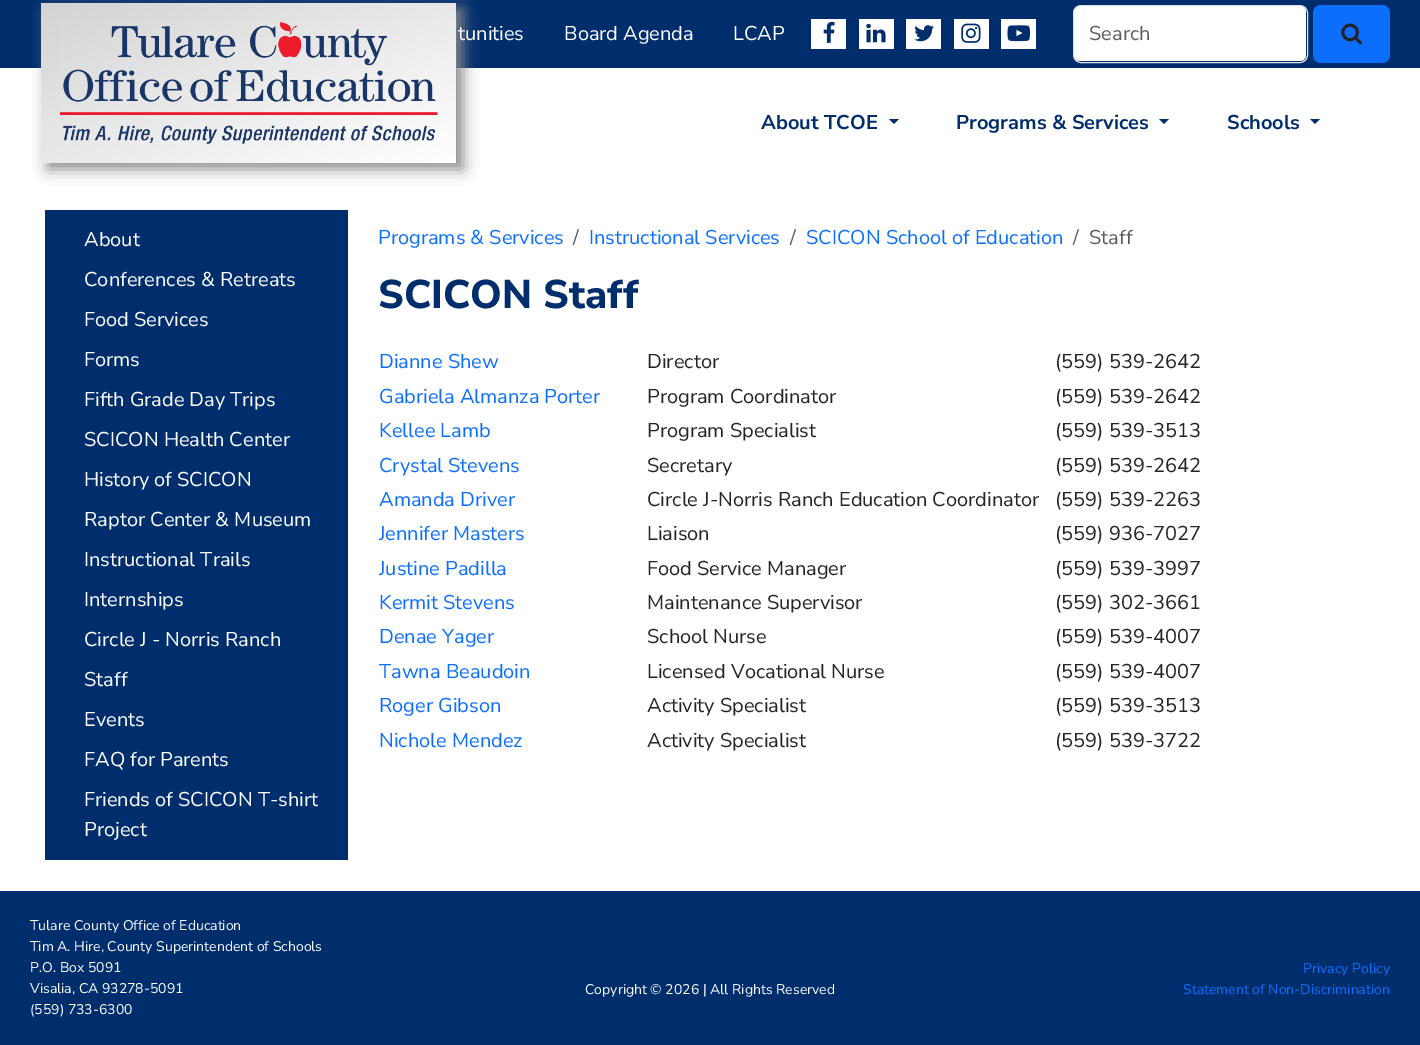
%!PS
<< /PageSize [1420 1045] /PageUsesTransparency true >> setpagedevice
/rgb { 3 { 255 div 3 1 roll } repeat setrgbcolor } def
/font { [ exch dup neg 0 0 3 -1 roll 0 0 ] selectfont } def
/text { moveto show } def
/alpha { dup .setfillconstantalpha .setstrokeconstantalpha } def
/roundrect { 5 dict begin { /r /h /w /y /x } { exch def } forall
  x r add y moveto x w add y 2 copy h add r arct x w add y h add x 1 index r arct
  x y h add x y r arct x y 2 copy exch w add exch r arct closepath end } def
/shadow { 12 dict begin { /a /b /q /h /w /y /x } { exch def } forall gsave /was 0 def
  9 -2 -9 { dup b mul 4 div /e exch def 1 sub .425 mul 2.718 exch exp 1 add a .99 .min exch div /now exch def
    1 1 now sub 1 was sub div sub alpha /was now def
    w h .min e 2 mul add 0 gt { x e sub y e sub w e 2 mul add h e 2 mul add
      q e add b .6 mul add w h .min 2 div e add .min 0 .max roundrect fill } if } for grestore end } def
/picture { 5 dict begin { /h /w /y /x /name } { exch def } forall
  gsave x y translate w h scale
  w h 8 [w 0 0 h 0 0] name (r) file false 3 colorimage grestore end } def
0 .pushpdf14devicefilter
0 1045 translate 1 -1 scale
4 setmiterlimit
255 255 255 rgb
0 0 1420 1045 rectfill
0 46 109 rgb
0 0 1420 68 rectfill
255 255 255 rgb
811 19 35 30 rectfill
(img_01.rgb) 823 22 12 21 picture
859 19 35 30 rectfill
(img_02.rgb) 866 23 20 20 picture
906 19 35 30 rectfill
(img_03.rgb) 914 25 20 17 picture
954 19 35 30 rectfill
(img_04.rgb) 961 23 20 20 picture
1001 19 35 30 rectfill
(img_05.rgb) 1007 25 23 17 picture
1074 6 232 55 6 roundrect fill
222 226 230 rgb
1073.5 5.5 234 57 7.5 roundrect stroke
13 110 253 rgb
1313 5 77 58 8 roundrect fill
(img_06.rgb) 1341 23 22 22 picture
136 136 136 rgb
48 9 415 160 0 7.5 1 shadow
gsave 41 3 moveto 415 0 rlineto 0 160 rlineto -415 0 rlineto closepath clip newpath
<< /ShadingType 2 /ColorSpace /DeviceRGB /Coords [195 -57 302 222] /Extend [true true] /Function << /FunctionType 2 /Domain [0 1] /C0 [0.827 0.827 0.827] /C1 [1 1 1] /N 1 >> >> shfill grestore
(img_07.rgb) 60 21 378 123 picture
0 46 109 rgb
889 119 moveto 10 0 rlineto -5 5 rlineto closepath fill
1159 119 moveto 10 0 rlineto -5 5 rlineto closepath fill
1310 119 moveto 10 0 rlineto -5 5 rlineto closepath fill
45 210 303 650 rectfill
0 891 1420 154 rectfill
/NunitoSans-Regular 20 font
255 255 255 rgb
(tunities) 458 40 text
(Board Agenda) 564 40 text
(LCAP) 733 40 text
89 92 95 rgb
(Search) 1089 40 text
/NunitoSans-Bold 20 font
0 46 109 rgb
(About TCOE) 761 129 text
(Programs & Services) 956 129 text
(Schools) 1227 129 text
/NunitoSans-Regular 20 font
255 255 255 rgb
(About) 84 246 text
(Conferences & Retreats) 84 286 text
(Food Services) 84 326 text
(Forms) 84 366 text
(Fifth Grade Day Trips) 84 406 text
(SCICON Health Center) 84 446 text
(History of SCICON) 84 486 text
(Raptor Center & Museum) 84 526 text
(Instructional Trails) 84 566 text
(Internships) 84 606 text
(Circle J - Norris Ranch) 84 646 text
(Staff) 84 686 text
(Events) 84 726 text
(FAQ for Parents) 84 766 text
(Friends of SCICON T-shirt) 84 806 text
(Project) 84 836 text
13 110 253 rgb
(Programs & Services) 378 244 text
89 92 95 rgb
(/) 573 244 text
13 110 253 rgb
(Instructional Services) 589 244 text
89 92 95 rgb
(/) 790 244 text
13 110 253 rgb
(SCICON School of Education) 806 244 text
89 92 95 rgb
(/) 1073 244 text
(Staff) 1089 244 text
/NunitoSans-ExtraBold 40 font
0 46 109 rgb
(SCICON Staff) 378 308 text
/NunitoSans-Regular 20 font
13 110 253 rgb
(Dianne Shew) 379 368 text
33 37 41 rgb
(Director) 647 368 text
(\(559\) 539-2642) 1055 368 text
13 110 253 rgb
(Gabriela Almanza Porter) 379 403 text
33 37 41 rgb
(Program Coordinator) 647 403 text
(\(559\) 539-2642) 1055 403 text
13 110 253 rgb
(Kellee Lamb) 379 437 text
33 37 41 rgb
(Program Specialist) 647 437 text
(\(559\) 539-3513) 1055 437 text
13 110 253 rgb
(Crystal Stevens) 379 472 text
33 37 41 rgb
(Secretary) 647 472 text
(\(559\) 539-2642) 1055 472 text
13 110 253 rgb
(Amanda Driver) 379 506 text
33 37 41 rgb
(Circle J-Norris Ranch Education Coordinator) 647 506 text
(\(559\) 539-2263) 1055 506 text
13 110 253 rgb
(Jennifer Masters) 379 540 text
33 37 41 rgb
(Liaison) 647 540 text
(\(559\) 936-7027) 1055 540 text
13 110 253 rgb
(Justine Padilla) 379 575 text
33 37 41 rgb
(Food Service Manager) 647 575 text
(\(559\) 539-3997) 1055 575 text
13 110 253 rgb
(Kermit Stevens) 379 609 text
33 37 41 rgb
(Maintenance Supervisor) 647 609 text
(\(559\) 302-3661) 1055 609 text
13 110 253 rgb
(Denae Yager) 379 643 text
33 37 41 rgb
(School Nurse) 647 643 text
(\(559\) 539-4007) 1055 643 text
13 110 253 rgb
(Tawna Beaudoin) 379 678 text
33 37 41 rgb
(Licensed Vocational Nurse) 647 678 text
(\(559\) 539-4007) 1055 678 text
13 110 253 rgb
(Roger Gibson) 379 712 text
33 37 41 rgb
(Activity Specialist) 647 712 text
(\(559\) 539-3513) 1055 712 text
13 110 253 rgb
(Nichole Mendez) 379 747 text
33 37 41 rgb
(Activity Specialist) 647 747 text
(\(559\) 539-3722) 1055 747 text
/NunitoSans-Regular 14 font
255 255 255 rgb
(Tulare County Office of Education) 30 930 text
(Tim A. Hire, County Superintendent of Schools) 30 951 text
(P.O. Box 5091) 30 972 text
(Visalia, CA 93278-5091) 30 993 text
(\(559\) 733-6300) 30 1014 text
(Copyright © 2026 | All Rights Reserved) 585 994 text
13 110 253 rgb
(Privacy Policy) 1303 973 text
(Statement of Non-Discrimination) 1183 994 text
.poppdf14devicefilter showpage
